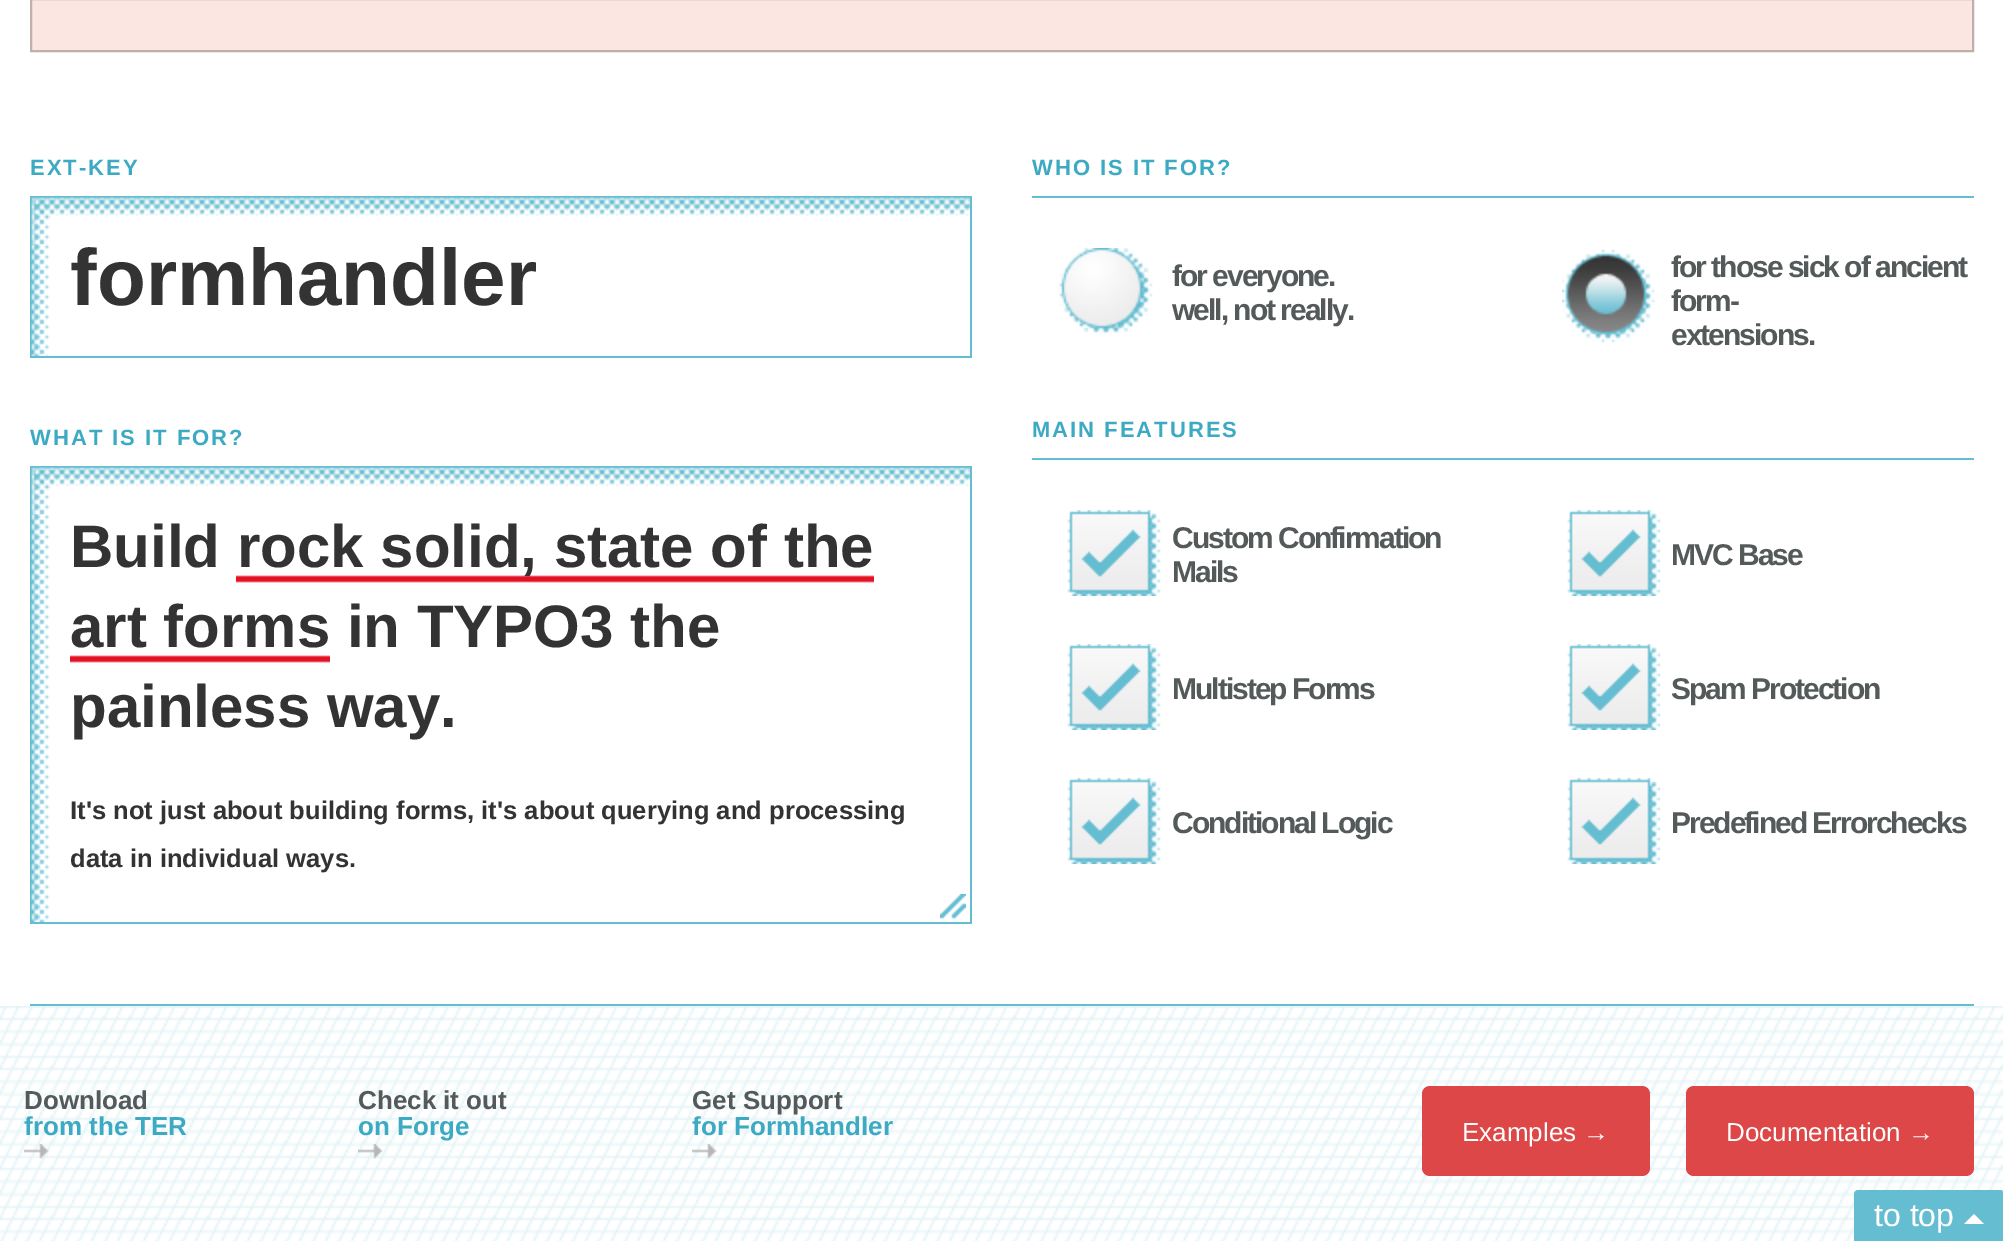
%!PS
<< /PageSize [2003 1241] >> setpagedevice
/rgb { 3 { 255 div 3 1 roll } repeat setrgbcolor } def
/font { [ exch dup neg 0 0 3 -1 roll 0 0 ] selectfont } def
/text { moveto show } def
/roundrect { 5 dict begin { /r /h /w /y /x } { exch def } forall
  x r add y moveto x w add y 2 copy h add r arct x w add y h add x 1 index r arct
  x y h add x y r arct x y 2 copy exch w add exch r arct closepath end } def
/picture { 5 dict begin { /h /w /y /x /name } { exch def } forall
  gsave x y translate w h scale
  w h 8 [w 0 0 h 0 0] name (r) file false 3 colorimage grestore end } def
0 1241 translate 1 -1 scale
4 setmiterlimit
255 255 255 rgb
0 0 2003 1241 rectfill
252 230 226 rgb
31 -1 moveto 1942 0 rlineto 0 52 rlineto -1942 0 rlineto closepath gsave fill grestore
192 175 172 rgb
2 setlinewidth
stroke
(img_01.rgb) 30 196 20 160 picture
101 189 209 rgb
970 196 2 162 rectfill
(img_02.rgb) 31 196 939 48 picture
30 356 940 2 rectfill
(img_03.rgb) 30 466 20 456 picture
970 466 2 458 rectfill
(img_02.rgb) 31 466 939 48 picture
30 922 940 2 rectfill
(img_04.rgb) 70 575 804 88 picture
(img_05.rgb) 940 894 26 25 picture
1032 196 942 2 rectfill
(img_06.rgb) 1059 248 94 86 picture
(img_07.rgb) 1562 249 93 94 picture
1032 458 942 2 rectfill
(img_08.rgb) 1067 510 94 86 picture
(img_08.rgb) 1567 510 94 86 picture
(img_08.rgb) 1067 644 94 86 picture
(img_08.rgb) 1567 644 94 86 picture
(img_08.rgb) 1067 778 94 86 picture
(img_08.rgb) 1567 778 94 86 picture
30 1004 1944 2 rectfill
(img_09.rgb) 0 1006 2003 235 picture
(img_10.rgb) 24 1144 25 15 picture
(img_11.rgb) 358 1144 25 15 picture
(img_12.rgb) 692 1144 25 15 picture
222 71 71 rgb
1422 1086 228 90 8 roundrect fill
1686 1086 288 90 8 roundrect fill
101 189 209 rgb
1858 1190 moveto 142 0 rlineto 2 0 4 2 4 4 rcurveto 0 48 rlineto -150 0 rlineto 0 -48 rlineto 0 -2 2 -4 4 -4 rcurveto closepath fill
255 255 255 rgb
1984 1224 moveto -20 0 rlineto 10 -10 rlineto closepath fill
/LiberationSans-Bold 22 font
60 170 195 rgb
30 175 moveto 2 0 (EXT-KEY) ashow
/LiberationSans-Bold 80 font
51 51 51 rgb
(formhandler) 70 305 text
/LiberationSans-Bold 22 font
60 170 195 rgb
30 445 moveto 2 0 (WHAT IS IT FOR?) ashow
/LiberationSans-Bold 60 font
51 51 51 rgb
(Build) 70 567 text
(rock solid, state of the) 237 567 text
(art forms in TYPO3 the) 70 647 text
(painless way.) 70 727 text
/LiberationSans-Bold 25.6 font
(It's not just about building forms, it's about querying and processing) 70 819 text
(data in individual ways.) 70 867 text
/LiberationSans-Bold 22 font
60 170 195 rgb
1032 175 moveto 2 0 (WHO IS IT FOR?) ashow
/LiberationSans-Bold 30 font
83 90 89 rgb
1172 286 moveto -2 0 (for everyone.) ashow
1172 320 moveto -2 0 (well, not really.) ashow
1671 277 moveto -2 0 (for those sick of ancient) ashow
1671 311 moveto -2 0 (form-) ashow
1671 345 moveto -2 0 (extensions.) ashow
/LiberationSans-Bold 22 font
60 170 195 rgb
1032 437 moveto 2 0 (MAIN FEATURES) ashow
/LiberationSans-Bold 30 font
83 90 89 rgb
1172 548 moveto -2 0 (Custom Confirmation) ashow
1172 582 moveto -2 0 (Mails) ashow
1671 565 moveto -2 0 (MVC Base) ashow
1172 699 moveto -2 0 (Multistep Forms) ashow
1671 699 moveto -2 0 (Spam Protection) ashow
1172 833 moveto -2 0 (Conditional Logic) ashow
1671 833 moveto -2 0 (Predefined Errorchecks) ashow
/LiberationSans-Bold 26 font
(Download) 24 1109 text
60 170 195 rgb
(from the TER) 24 1135 text
83 90 89 rgb
(Check it out) 358 1109 text
60 170 195 rgb
(on Forge) 358 1135 text
83 90 89 rgb
(Get Support) 692 1109 text
60 170 195 rgb
(for Formhandler) 692 1135 text
/LiberationSans-Regular 26 font
255 255 255 rgb
(Examples →) 1462 1141 text
(Documentation →) 1726 1141 text
/LiberationSans-Regular 32 font
(to top) 1874 1226 text
showpage
